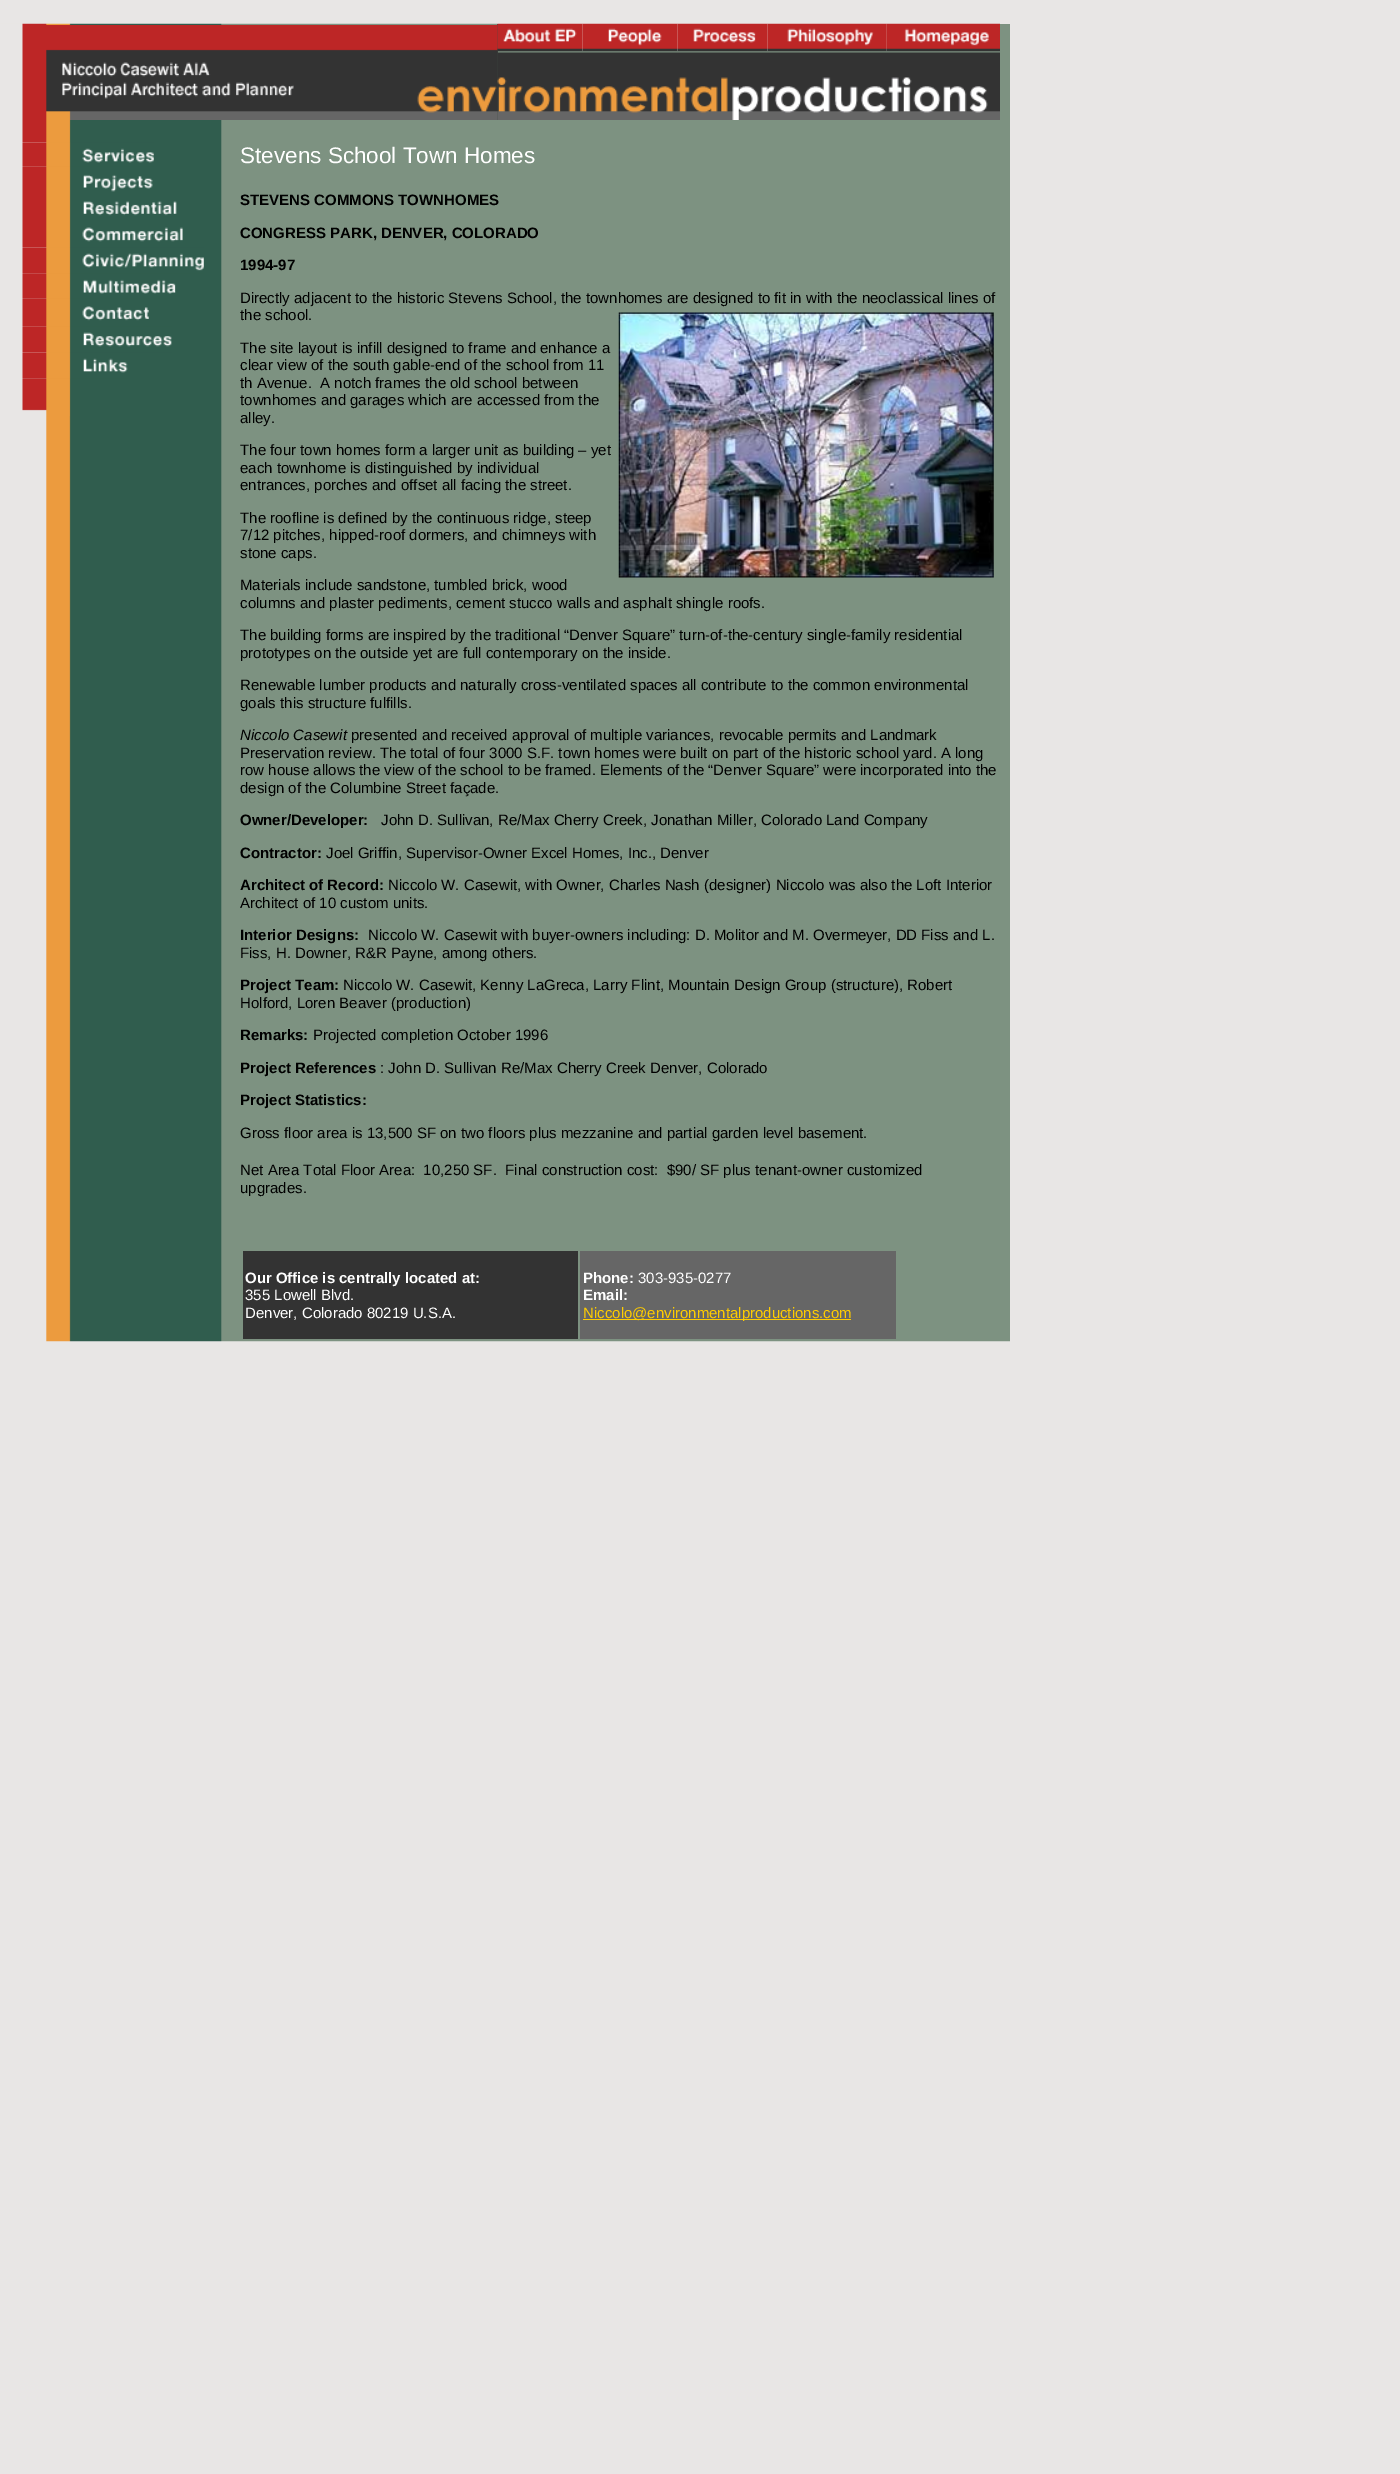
%!PS
<< /PageSize [1400 2474] >> setpagedevice
/rgb { 3 { 255 div 3 1 roll } repeat setrgbcolor } def
/font { [ exch dup neg 0 0 3 -1 roll 0 0 ] selectfont } def
/text { moveto show } def
/picture { 5 dict begin { /h /w /y /x /name } { exch def } forall
  gsave x y translate w h scale
  w h 8 [w 0 0 h 0 0] name (r) file false 3 colorimage grestore end } def
0 2474 translate 1 -1 scale
4 setmiterlimit
232 230 229 rgb
0 0 1400 2474 rectfill
(img_01.rgb) 0 23 498 97 picture
(img_02.rgb) 46 25 452 95 picture
125 146 129 rgb
498 51 502 2 rectfill
(img_03.rgb) 497 23 86 29 picture
(img_04.rgb) 582 23 96 29 picture
(img_05.rgb) 677 23 91 29 picture
(img_06.rgb) 767 23 120 29 picture
(img_07.rgb) 886 23 114 29 picture
1000 24 10 96 rectfill
(img_08.rgb) 497 52 503 68 picture
(img_09.rgb) 46 120 964 1222 picture
(img_10.rgb) 22 120 48 23 picture
(img_11.rgb) 22 142 132 25 picture
(img_12.rgb) 22 166 131 29 picture
(img_13.rgb) 22 195 155 25 picture
(img_14.rgb) 22 220 161 28 picture
(img_15.rgb) 22 247 182 27 picture
(img_16.rgb) 22 273 154 26 picture
(img_17.rgb) 22 298 127 29 picture
(img_18.rgb) 22 326 150 27 picture
(img_19.rgb) 22 352 106 27 picture
(img_20.rgb) 22 378 48 38 picture
(img_21.rgb) 618 312 376 266 picture
51 51 51 rgb
243 1251 335 88 rectfill
102 102 102 rgb
580 1251 316 88 rectfill
255 204 0 rgb
583 1319 268 1 rectfill
/LiberationSans-Regular 22.5 font
255 255 255 rgb
(Stevens School Town Homes) 240 163 text
/LiberationSans-Bold 15 font
0 0 0 rgb
(STEVENS COMMONS TOWNHOMES) 240 205 text
(CONGRESS PARK, DENVER, COLORADO) 240 238 text
(1994-97) 240 270 text
/LiberationSans-Regular 15 font
(Directly adjacent to the historic Stevens School, the townhomes are designed to fit in with the neoclassical lines of) 240 303 text
(the school.) 240 320 text
(The site layout is infill designed to frame and enhance a) 240 353 text
(clear view of the south gable-end of the school from 11) 240 370 text
(th Avenue.  A notch frames the old school between) 240 388 text
(townhomes and garages which are accessed from the) 240 405 text
(alley.) 240 423 text
(The four town homes form a larger unit as building – yet) 240 455 text
(each townhome is distinguished by individual) 240 473 text
(entrances, porches and offset all facing the street.) 240 490 text
(The roofline is defined by the continuous ridge, steep) 240 523 text
(7/12 pitches, hipped-roof dormers, and chimneys with) 240 540 text
(stone caps.) 240 558 text
(Materials include sandstone, tumbled brick, wood) 240 590 text
(columns and plaster pediments, cement stucco walls and asphalt shingle roofs.) 240 608 text
(The building forms are inspired by the traditional “Denver Square” turn-of-the-century single-family residential) 240 640 text
(prototypes on the outside yet are full contemporary on the inside.) 240 658 text
(Renewable lumber products and naturally cross-ventilated spaces all contribute to the common environmental) 240 690 text
(goals this structure fulfills.) 240 708 text
/LiberationSans-Italic 15 font
(Niccolo Casewit) 240 740 text
/LiberationSans-Regular 15 font
(presented and received approval of multiple variances, revocable permits and Landmark) 351 740 text
(Preservation review. The total of four 3000 S.F. town homes were built on part of the historic school yard. A long) 240 758 text
(row house allows the view of the school to be framed. Elements of the “Denver Square” were incorporated into the) 240 775 text
(design of the Columbine Street façade.) 240 793 text
/LiberationSans-Bold 15 font
(Owner/Developer:) 240 825 text
/LiberationSans-Regular 15 font
(John D. Sullivan, Re/Max Cherry Creek, Jonathan Miller, Colorado Land Company) 381 825 text
/LiberationSans-Bold 15 font
(Contractor:) 240 858 text
/LiberationSans-Regular 15 font
(Joel Griffin, Supervisor-Owner Excel Homes, Inc., Denver) 326 858 text
/LiberationSans-Bold 15 font
(Architect of Record:) 240 890 text
/LiberationSans-Regular 15 font
(Niccolo W. Casewit, with Owner, Charles Nash \(designer\) Niccolo was also the Loft Interior) 388 890 text
(Architect of 10 custom units.) 240 908 text
/LiberationSans-Bold 15 font
(Interior Designs:) 240 940 text
/LiberationSans-Regular 15 font
(Niccolo W. Casewit with buyer-owners including: D. Molitor and M. Overmeyer, DD Fiss and L.) 368 940 text
(Fiss, H. Downer, R&R Payne, among others.) 240 958 text
/LiberationSans-Bold 15 font
(Project Team:) 240 990 text
/LiberationSans-Regular 15 font
(Niccolo W. Casewit, Kenny LaGreca, Larry Flint, Mountain Design Group \(structure\), Robert) 343 990 text
(Holford, Loren Beaver \(production\)) 240 1008 text
/LiberationSans-Bold 15 font
(Remarks:) 240 1040 text
/LiberationSans-Regular 15 font
(Projected completion October 1996) 313 1040 text
/LiberationSans-Bold 15 font
(Project References) 240 1073 text
/LiberationSans-Regular 15 font
(: John D. Sullivan Re/Max Cherry Creek Denver, Colorado) 380 1073 text
/LiberationSans-Bold 15 font
(Project Statistics:) 240 1105 text
/LiberationSans-Regular 15 font
(Gross floor area is 13,500 SF on two floors plus mezzanine and partial garden level basement.) 240 1138 text
(Net Area Total Floor Area:  10,250 SF.  Final construction cost:  $90/ SF plus tenant-owner customized) 240 1175 text
(upgrades.) 240 1193 text
/LiberationSans-Bold 15 font
255 255 255 rgb
(Our Office is centrally located at:) 245 1283 text
/LiberationSans-Regular 15 font
(355 Lowell Blvd.) 245 1300 text
(Denver, Colorado 80219 U.S.A.) 245 1318 text
/LiberationSans-Bold 15 font
(Phone:) 583 1283 text
/LiberationSans-Regular 15 font
(303-935-0277) 638 1283 text
/LiberationSans-Bold 15 font
(Email:) 583 1300 text
/LiberationSans-Regular 15 font
255 204 0 rgb
(Niccolo@environmentalproductions.com) 583 1318 text
showpage
